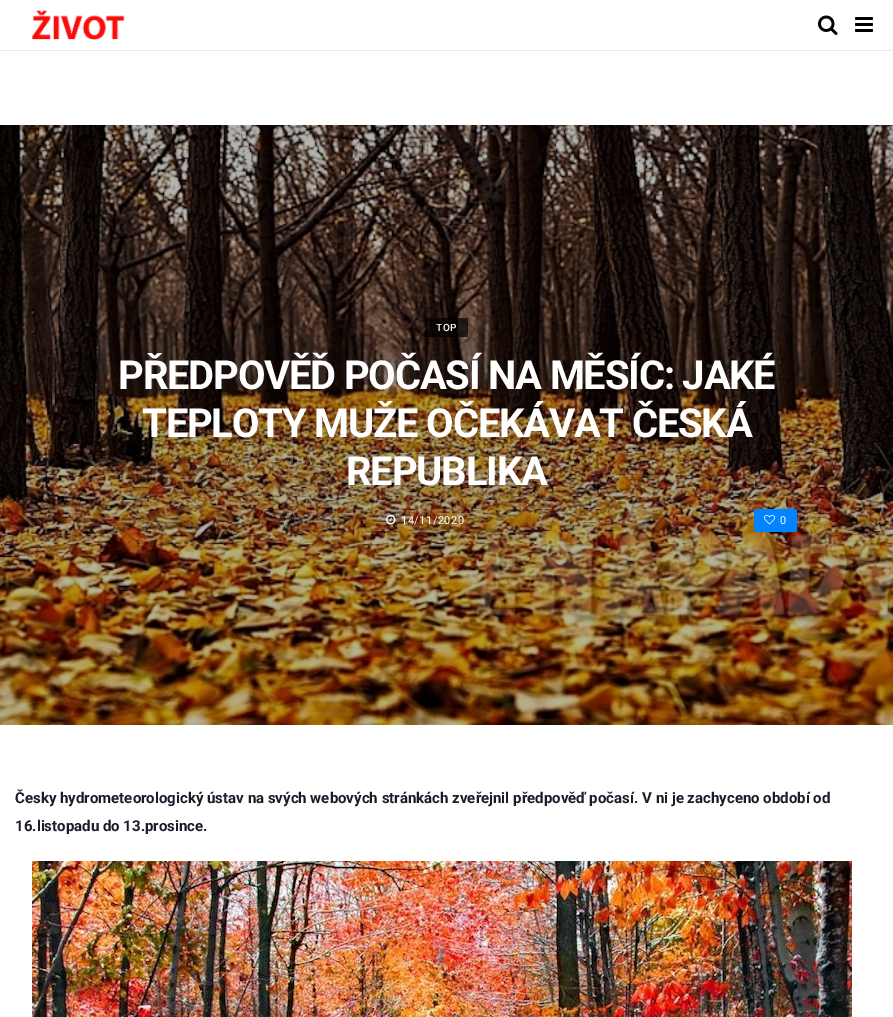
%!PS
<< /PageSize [893 1017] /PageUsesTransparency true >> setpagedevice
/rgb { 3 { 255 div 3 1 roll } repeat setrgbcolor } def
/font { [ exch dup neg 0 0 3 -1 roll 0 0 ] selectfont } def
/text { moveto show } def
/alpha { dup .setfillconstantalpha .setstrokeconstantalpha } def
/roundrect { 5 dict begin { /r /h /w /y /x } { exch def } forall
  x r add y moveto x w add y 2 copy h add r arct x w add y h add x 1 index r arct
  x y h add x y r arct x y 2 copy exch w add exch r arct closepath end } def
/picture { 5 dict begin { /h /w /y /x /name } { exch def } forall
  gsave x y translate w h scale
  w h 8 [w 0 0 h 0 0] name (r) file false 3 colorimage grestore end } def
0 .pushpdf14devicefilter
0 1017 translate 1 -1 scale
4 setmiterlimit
255 255 255 rgb
0 0 893 1017 rectfill
234 234 234 rgb
0 50 893 1 rectfill
(img_01.rgb) 31 10 94 30 picture
(img_02.rgb) 818 15 20 20 picture
(img_03.rgb) 855 17 18 15 picture
(img_04.rgb) 0 125 893 600 picture
0.7 alpha
0 0 0 rgb
425 318 43 19 rectfill
1 alpha
(img_05.rgb) 386 515 10 10 picture
0 132 255 rgb
754 509 43 23 2 roundrect fill
(img_06.rgb) 764 515 11 10 picture
(img_07.rgb) 32 861 820 156 picture
/Roboto-Medium 10 font
255 255 255 rgb
436 331 moveto 0.5 0 (TOP) ashow
/Roboto-Bold 40 font
118 389 moveto -1.2 0 (PŘEDPOVĚĎ POČASÍ NA MĚSÍC: JAKÉ) ashow
142 437 moveto -1.2 0 (TEPLOTY MUŽE OČEKÁVAT ČESKÁ) ashow
346 485 moveto -1.2 0 (REPUBLIKA) ashow
/Roboto-Regular 11 font
401 524 moveto 0.5 0 (14/11/2020) ashow
(0) 780 524 text
/Roboto-Bold 15 font
27 28 42 rgb
(Česky hydrometeorologický ústav na svých webových stránkách zveřejnil předpověď počasí. V ni je zachyceno období od) 15 803 text
(16.listopadu do 13.prosince.) 15 831 text
.poppdf14devicefilter showpage
